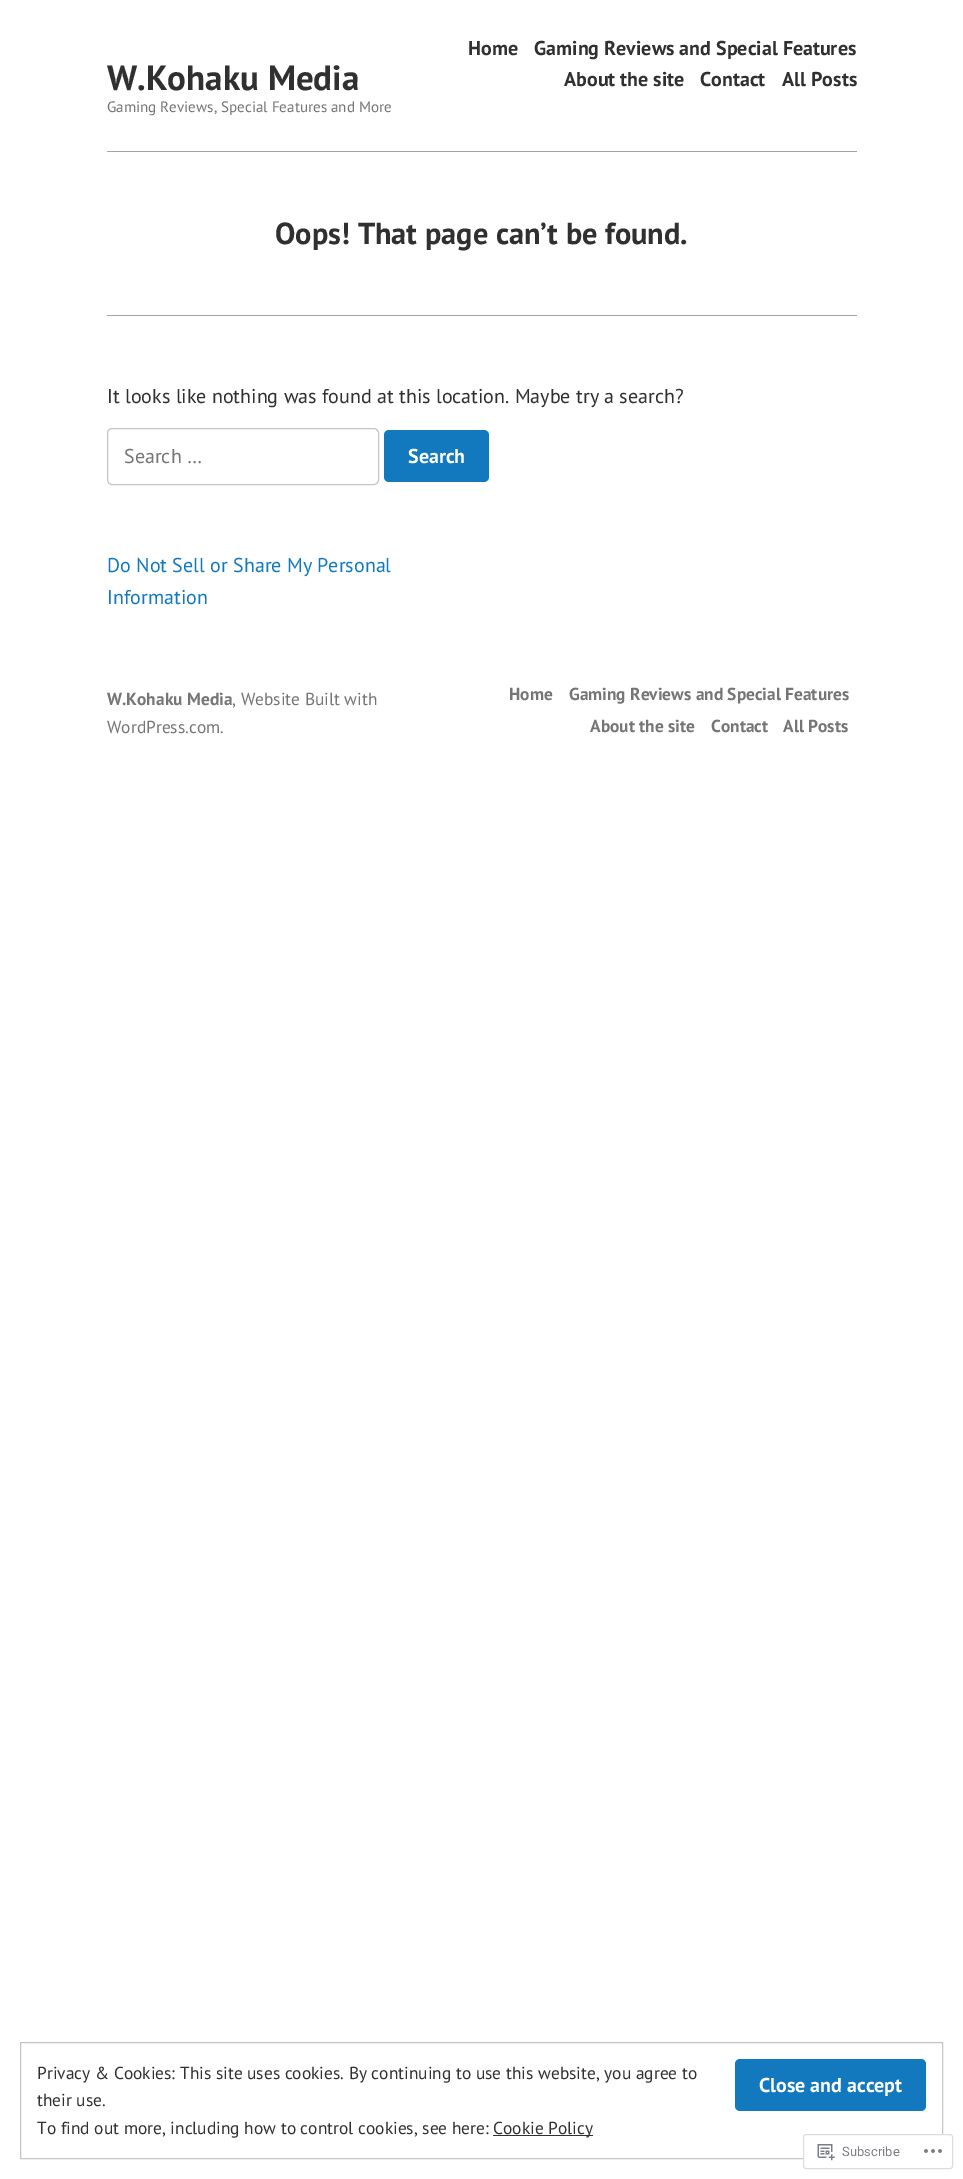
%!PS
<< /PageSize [963 2179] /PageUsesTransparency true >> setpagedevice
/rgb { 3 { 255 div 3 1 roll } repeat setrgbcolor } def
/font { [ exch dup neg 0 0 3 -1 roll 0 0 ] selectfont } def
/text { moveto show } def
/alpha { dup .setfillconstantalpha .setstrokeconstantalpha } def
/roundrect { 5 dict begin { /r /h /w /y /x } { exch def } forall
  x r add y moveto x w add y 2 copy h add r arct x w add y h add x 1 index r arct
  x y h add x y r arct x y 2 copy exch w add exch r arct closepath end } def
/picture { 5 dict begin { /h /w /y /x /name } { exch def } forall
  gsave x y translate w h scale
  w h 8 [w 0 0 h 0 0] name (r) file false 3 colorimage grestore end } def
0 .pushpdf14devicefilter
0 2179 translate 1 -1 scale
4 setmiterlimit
255 255 255 rgb
0 0 963 2179 rectfill
165 165 165 rgb
107 151 750 1 rectfill
107 315 750 1 rectfill
197 197 197 rgb
107.5 428.5 271 56 4.5 roundrect stroke
18 121 190 rgb
384 430 105 52 5 roundrect fill
197 197 197 rgb
20.5 2042.5 922 116 rectstroke
18 121 190 rgb
735 2059 191 52 5 roundrect fill
48 48 48 rgb
493 2135 100 1 rectfill
0.98 alpha
255 255 255 rgb
803.5 2134.5 149 34 2.5 roundrect fill
1 alpha
221 221 223 rgb
803.5 2134.5 149 34 2.5 roundrect stroke
(img_01.rgb) 817 2144 18 17 picture
(img_02.rgb) 924 2149 18 4 picture
/PTSans-Bold 35 font
48 48 48 rgb
(W.Kohaku Media) 107 90 text
/PTSans-Bold 20 font
(Home) 468 55 text
(Gaming Reviews and Special Features) 534 55 text
(About the site) 564 86 text
(Contact) 700 86 text
(All Posts) 782 86 text
/PTSans-Regular 15.1 font
117 117 117 rgb
(Gaming Reviews, Special Features and More) 107 112 text
/PTSans-Bold 30.4 font
48 48 48 rgb
(Oops! That page can’t be found.) 275 244 text
/PTSans-Regular 20 font
(It looks like nothing was found at this location. Maybe try a search?) 107 403 text
117 117 117 rgb
(Search …) 124 463 text
/PTSans-Bold 20 font
255 255 255 rgb
(Search) 408 463 text
/PTSans-Regular 20 font
18 121 190 rgb
(Do Not Sell or Share My Personal) 107 572 text
(Information) 107 604 text
/PTSans-Bold 17.4 font
117 117 117 rgb
(W.Kohaku Media) 107 705 text
/PTSans-Regular 17.4 font
(, Website Built with) 232 705 text
(WordPress.com.) 107 733 text
/PTSans-Bold 17.4 font
(Home) 509 700 text
(Gaming Reviews and Special Features) 569 700 text
(About the site) 590 732 text
(Contact) 711 732 text
(All Posts) 783 732 text
/PTSans-Regular 17.4 font
48 48 48 rgb
(Privacy & Cookies: This site uses cookies. By continuing to use this website, you agree to) 37 2079 text
/PTSans-Bold 20 font
255 255 255 rgb
(Close and accept) 759 2092 text
/PTSans-Regular 17.4 font
48 48 48 rgb
(their use.) 37 2106 text
(To find out more, including how to control cookies, see here:) 37 2134 text
(Cookie Policy) 493 2134 text
/Roboto-Regular 13 font
123 127 133 rgb
(Subscribe) 842 2156 text
.poppdf14devicefilter showpage
